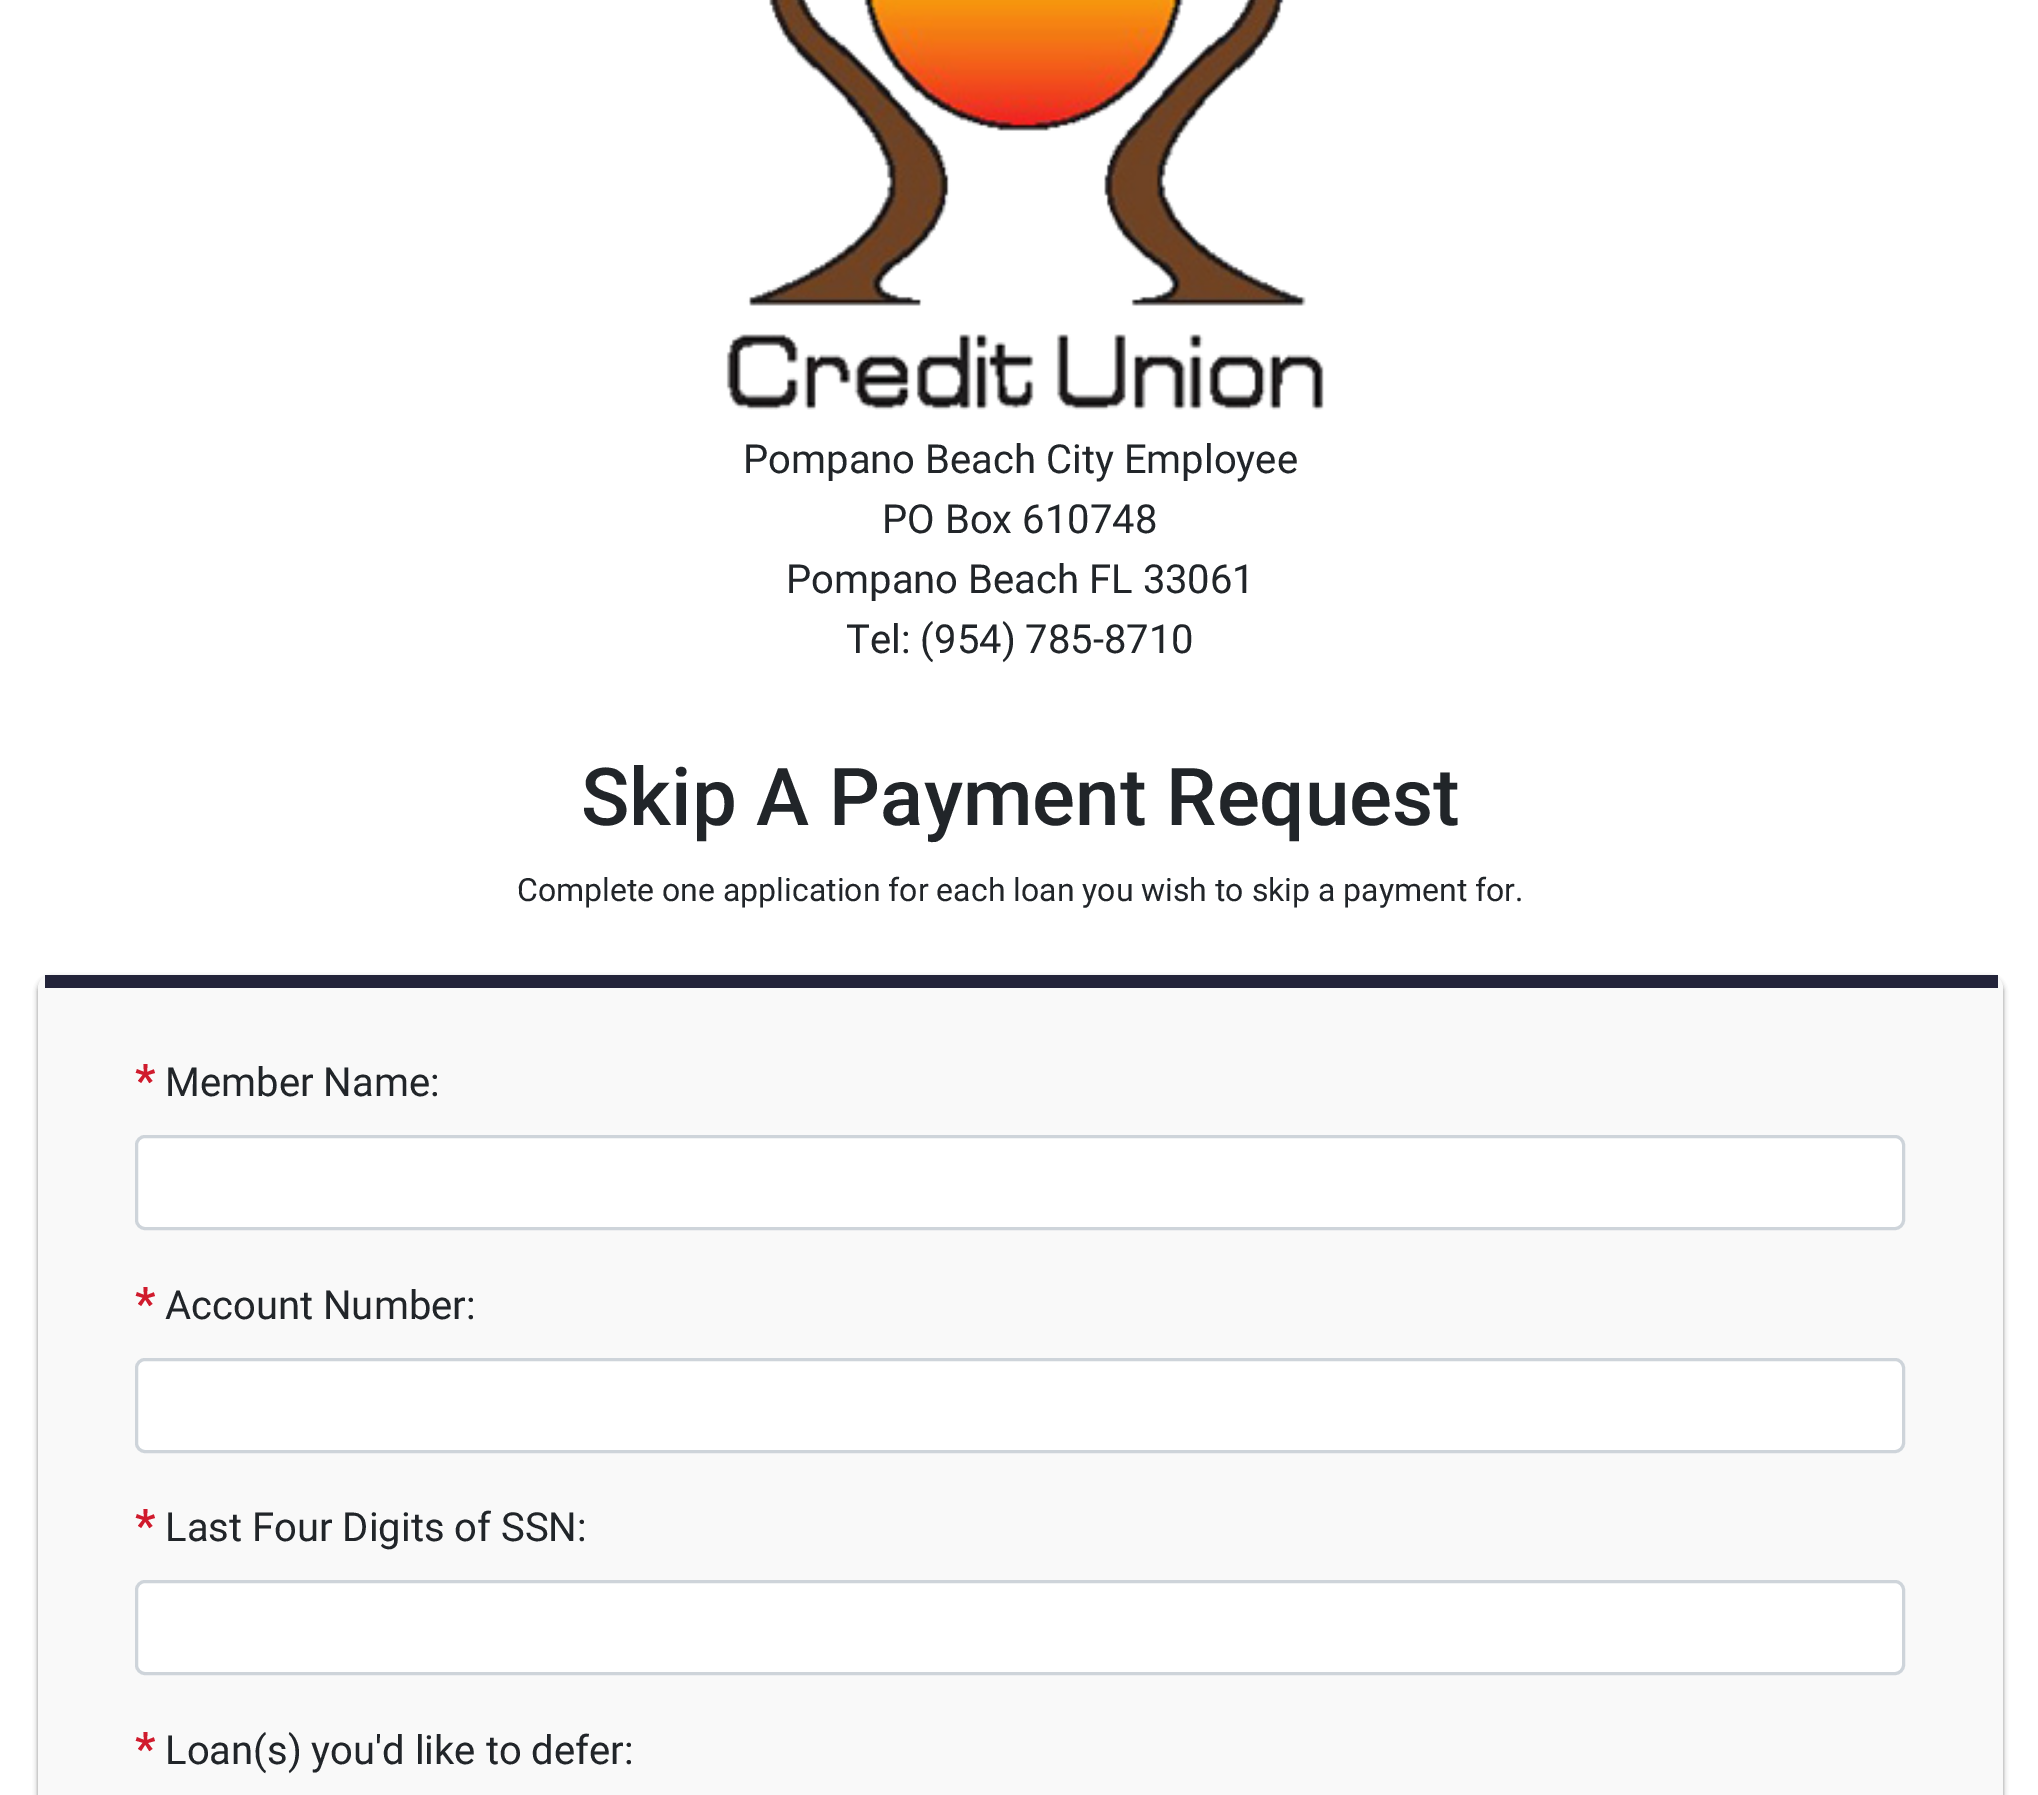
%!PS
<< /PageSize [2038 1795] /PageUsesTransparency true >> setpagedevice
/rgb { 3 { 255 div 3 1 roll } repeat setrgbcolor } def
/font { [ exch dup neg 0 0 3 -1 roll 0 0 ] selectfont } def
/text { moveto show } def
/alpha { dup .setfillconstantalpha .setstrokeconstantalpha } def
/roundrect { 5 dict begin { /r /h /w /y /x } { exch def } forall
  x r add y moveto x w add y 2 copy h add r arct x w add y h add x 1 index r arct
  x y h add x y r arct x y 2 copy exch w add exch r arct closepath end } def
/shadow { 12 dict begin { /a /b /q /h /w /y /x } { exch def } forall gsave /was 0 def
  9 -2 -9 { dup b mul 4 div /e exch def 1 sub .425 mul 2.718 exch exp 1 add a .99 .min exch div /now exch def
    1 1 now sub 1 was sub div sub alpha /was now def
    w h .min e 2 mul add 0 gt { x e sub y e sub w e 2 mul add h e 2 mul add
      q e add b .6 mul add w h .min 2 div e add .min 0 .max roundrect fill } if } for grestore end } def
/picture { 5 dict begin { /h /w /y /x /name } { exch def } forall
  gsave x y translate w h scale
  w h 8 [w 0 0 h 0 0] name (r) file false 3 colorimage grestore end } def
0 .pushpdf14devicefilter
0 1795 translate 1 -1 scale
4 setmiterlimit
255 255 255 rgb
0 0 2038 1795 rectfill
(img_01.rgb) 726 0 598 410 picture
137 137 137 rgb
38 978 1965 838 13 2.5 1 shadow
249 249 249 rgb
38 975 1965 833 13 roundrect fill
35 36 58 rgb
45 975 1953 13 rectfill
255 255 255 rgb
136.5 1136.5 1767 92 8.5 roundrect gsave fill grestore
206 212 218 rgb
3 setlinewidth
stroke
255 255 255 rgb
136.5 1359.5 1767 92 8.5 roundrect gsave fill grestore
206 212 218 rgb
stroke
255 255 255 rgb
136.5 1581.5 1767 92 8.5 roundrect gsave fill grestore
206 212 218 rgb
stroke
/Roboto-Regular 40 font
33 37 41 rgb
(Pompano Beach City Employee) 743 473 text
(PO Box 610748) 882 533 text
(Pompano Beach FL 33061) 786 593 text
(Tel: \(954\) 785-8710) 846 653 text
/Roboto-Medium 80 font
(Skip A Payment Request) 581 825 text
/Roboto-Regular 32 font
(Complete one application for each loan you wish to skip a payment for.) 517 901 text
/Roboto-Bold 45 font
208 27 45 rgb
(*) 135 1096 text
/Roboto-Regular 40 font
33 37 41 rgb
(Member Name:) 165 1096 text
/Roboto-Bold 45 font
208 27 45 rgb
(*) 135 1319 text
/Roboto-Regular 40 font
33 37 41 rgb
(Account Number:) 165 1319 text
/Roboto-Bold 45 font
208 27 45 rgb
(*) 135 1541 text
/Roboto-Regular 40 font
33 37 41 rgb
(Last Four Digits of SSN:) 165 1541 text
/Roboto-Bold 45 font
208 27 45 rgb
(*) 135 1764 text
/Roboto-Regular 40 font
33 37 41 rgb
(Loan\(s\) you'd like to defer:) 165 1764 text
.poppdf14devicefilter showpage
